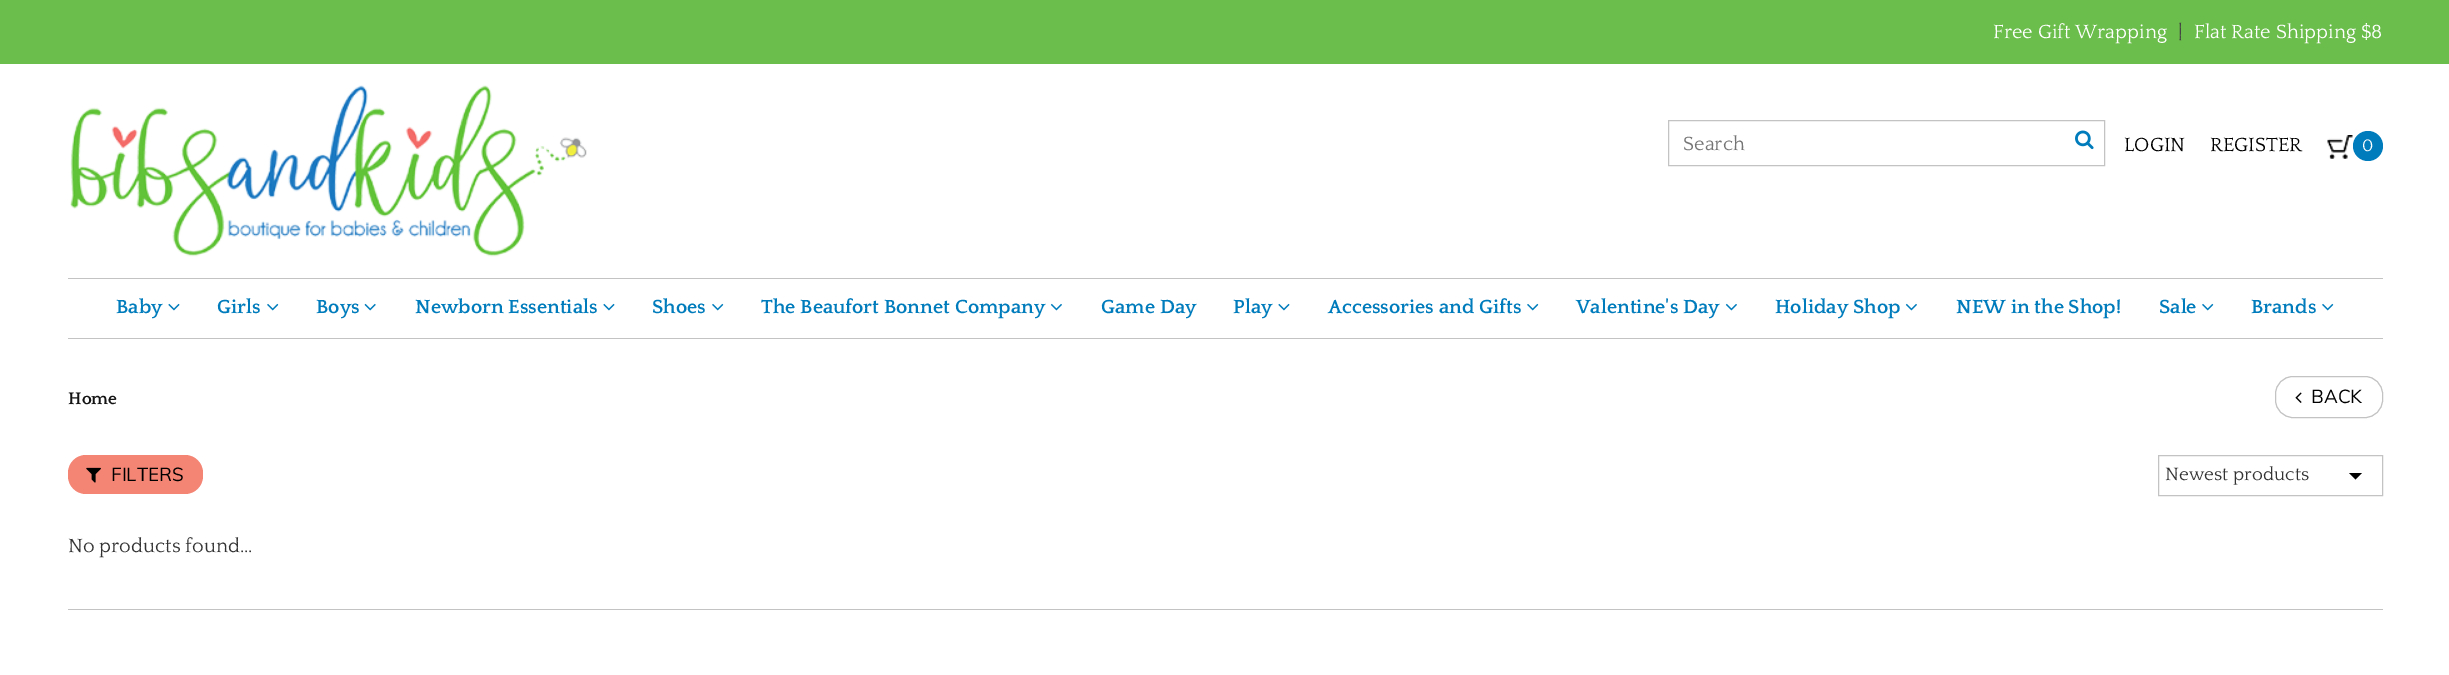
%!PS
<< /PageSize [2449 675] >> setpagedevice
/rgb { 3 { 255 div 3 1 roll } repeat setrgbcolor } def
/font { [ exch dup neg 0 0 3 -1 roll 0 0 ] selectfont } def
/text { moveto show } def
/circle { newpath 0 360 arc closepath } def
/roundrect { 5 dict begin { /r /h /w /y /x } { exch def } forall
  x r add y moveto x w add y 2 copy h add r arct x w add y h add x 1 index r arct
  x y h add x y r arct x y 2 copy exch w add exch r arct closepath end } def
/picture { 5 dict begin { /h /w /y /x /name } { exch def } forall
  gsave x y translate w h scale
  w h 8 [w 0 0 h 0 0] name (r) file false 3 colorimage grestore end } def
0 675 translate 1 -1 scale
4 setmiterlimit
255 255 255 rgb
0 0 2449 675 rectfill
108 190 76 rgb
0 0 2449 64 rectfill
(img_01.rgb) 70 85 517 172 picture
195 195 195 rgb
1668.5 120.5 436 45 rectstroke
(img_02.rgb) 2075 130 19 20 picture
(img_03.rgb) 2327 135 26 24 picture
0 124 188 rgb
2368 146 15 circle fill
195 195 195 rgb
68 278 2315 1 rectfill
68 338 2315 1 rectfill
(img_04.rgb) 168 303 12 8 picture
(img_05.rgb) 267 303 12 8 picture
(img_06.rgb) 364 303 12 8 picture
(img_04.rgb) 603 303 12 8 picture
(img_05.rgb) 712 303 12 8 picture
(img_07.rgb) 1050 303 12 8 picture
(img_04.rgb) 1278 303 12 8 picture
(img_05.rgb) 1527 303 12 8 picture
(img_07.rgb) 1725 303 12 8 picture
(img_07.rgb) 1905 303 12 8 picture
(img_05.rgb) 2202 303 12 8 picture
(img_05.rgb) 2322 303 12 8 picture
2275.5 376.5 107 41 17.5 roundrect stroke
(img_08.rgb) 2295 392 7 11 picture
244 132 116 rgb
68 455 135 39 18 roundrect fill
(img_09.rgb) 86 467 15 16 picture
0 0 0 rgb
2349 473 moveto 6.5 6.5 rlineto 6.5 -6.5 rlineto closepath fill
195 195 195 rgb
2158.5 455.5 224 40 rectstroke
68 609 2315 1 rectfill
/Quattrocento-Regular 20 font
255 255 255 rgb
(Free Gift Wrapping) 1993 38 text
68 68 68 rgb
(|) 2178 38 text
255 255 255 rgb
(Flat Rate Shipping $8) 2194 38 text
117 117 117 rgb
(Search) 1683 150 text
0 0 0 rgb
(LOGIN) 2124 151 text
(REGISTER) 2210 151 text
/Quattrocento-Regular 17.5 font
255 255 255 rgb
(0) 2362 151 text
/Quattrocento-Bold 20 font
0 124 188 rgb
(Baby) 116 313 text
(Girls) 217 313 text
(Boys) 316 313 text
(Newborn Essentials) 415 313 text
(Shoes) 652 313 text
(The Beaufort Bonnet Company) 761 313 text
(Game Day) 1101 313 text
(Play) 1233 313 text
(Accessories and Gifts) 1328 313 text
(Valentine's Day) 1576 313 text
(Holiday Shop) 1775 313 text
(NEW in the Shop!) 1956 313 text
(Sale) 2159 313 text
(Brands) 2251 313 text
/Quattrocento-Bold 17.5 font
20 20 20 rgb
(Home) 68 404 text
/Muli-Regular 18.75 font
0 0 0 rgb
(BACK) 2311 403 text
(FILTERS) 111 481 text
/Quattrocento-Regular 18.75 font
51 51 51 rgb
(Newest products) 2165 480 text
/Quattrocento-Regular 20 font
(No products found...) 68 552 text
showpage
